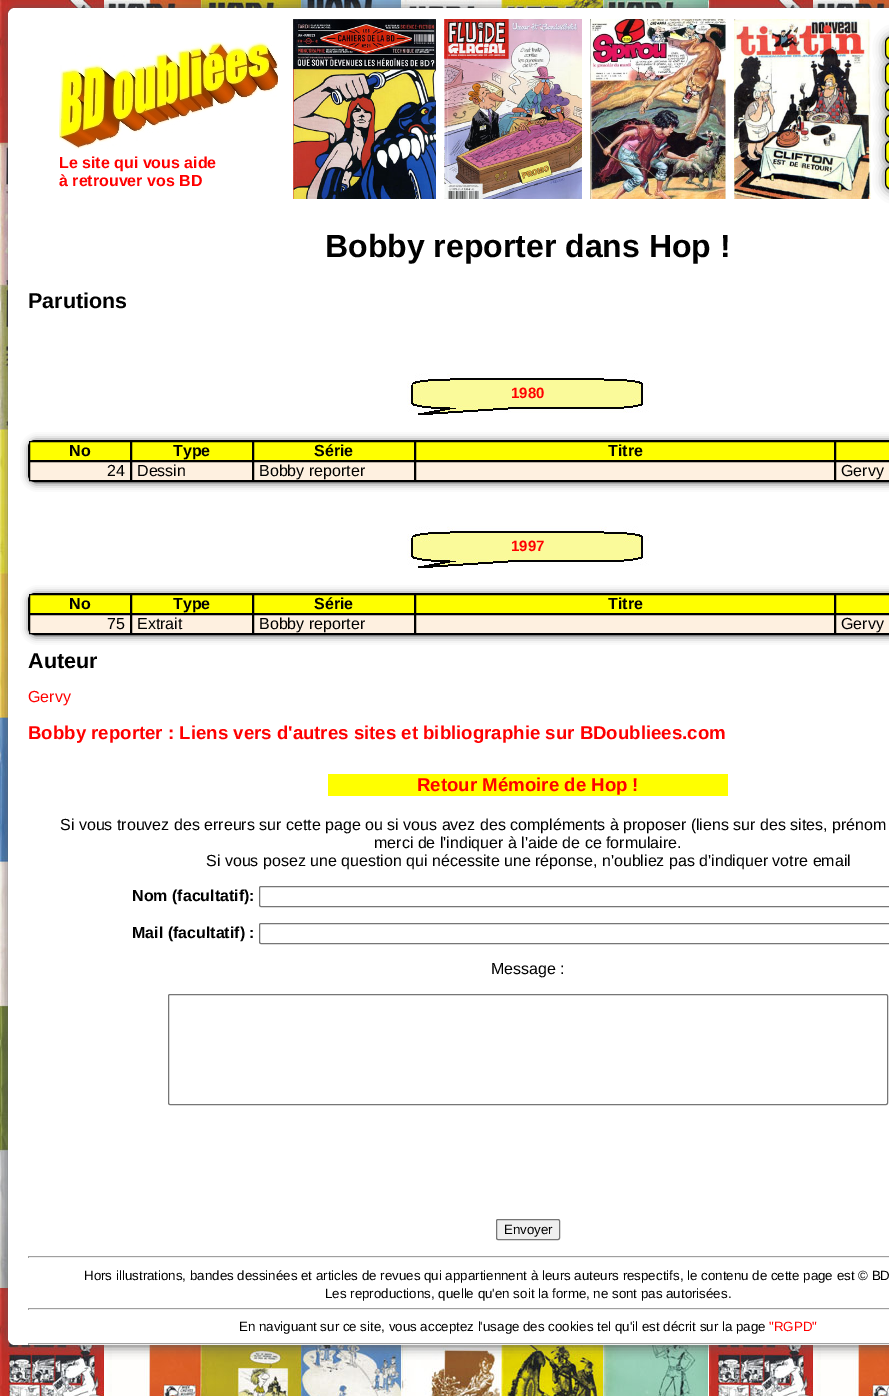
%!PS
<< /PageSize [889 1396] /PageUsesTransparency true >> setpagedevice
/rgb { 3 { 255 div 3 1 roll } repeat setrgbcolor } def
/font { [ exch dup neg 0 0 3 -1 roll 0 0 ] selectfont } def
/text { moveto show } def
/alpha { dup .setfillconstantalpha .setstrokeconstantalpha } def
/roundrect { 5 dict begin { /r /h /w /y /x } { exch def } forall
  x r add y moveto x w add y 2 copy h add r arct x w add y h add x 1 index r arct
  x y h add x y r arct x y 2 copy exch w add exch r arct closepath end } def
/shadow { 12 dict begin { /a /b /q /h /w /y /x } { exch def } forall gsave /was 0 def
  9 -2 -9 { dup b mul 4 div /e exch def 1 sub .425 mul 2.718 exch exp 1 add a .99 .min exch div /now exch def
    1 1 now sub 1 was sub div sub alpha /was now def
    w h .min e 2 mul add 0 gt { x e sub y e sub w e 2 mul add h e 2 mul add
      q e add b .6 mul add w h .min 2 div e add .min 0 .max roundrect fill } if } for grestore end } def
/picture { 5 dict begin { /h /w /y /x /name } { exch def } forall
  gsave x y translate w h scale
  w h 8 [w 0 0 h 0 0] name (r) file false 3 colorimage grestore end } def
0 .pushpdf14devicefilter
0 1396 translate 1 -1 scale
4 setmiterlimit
255 255 255 rgb
0 0 889 1396 rectfill
(img_01.rgb) 0 0 889 1396 picture
85 85 85 rgb
9 9 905 1337 7 6 1 shadow
255 255 255 rgb
8 8 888 1337 7 roundrect fill
85 85 85 rgb
886 37 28 24 7 6 1 shadow
255 255 0 rgb
885.5 36.5 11 23 6.5 roundrect gsave fill grestore
0 0 0 rgb
stroke
85 85 85 rgb
886 63 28 24 7 6 1 shadow
255 255 0 rgb
885.5 62.5 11 23 6.5 roundrect gsave fill grestore
0 0 0 rgb
stroke
85 85 85 rgb
886 89 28 24 7 6 1 shadow
255 255 0 rgb
885.5 88.5 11 23 6.5 roundrect gsave fill grestore
0 0 0 rgb
stroke
85 85 85 rgb
886 115 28 24 7 6 1 shadow
255 255 0 rgb
885.5 114.5 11 23 6.5 roundrect gsave fill grestore
0 0 0 rgb
stroke
85 85 85 rgb
886 141 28 24 7 6 1 shadow
255 255 0 rgb
885.5 140.5 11 23 6.5 roundrect gsave fill grestore
0 0 0 rgb
stroke
(img_02.rgb) 59 42 219 107 picture
85 85 85 rgb
886 167 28 24 7 6 1 shadow
(img_03.rgb) 293 19 578 180 picture
255 255 0 rgb
885.5 166.5 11 23 6.5 roundrect gsave fill grestore
0 0 0 rgb
stroke
(img_04.rgb) 407 373 242 42 picture
85 85 85 rgb
29 441 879 42 7 4 1 shadow
0 0 0 rgb
28.5 440.5 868 41 6.5 roundrect stroke
255 255 0 rgb
29.5 441.5 moveto 101 0 rlineto 0 19 rlineto -101 0 rlineto closepath gsave fill grestore
0 0 0 rgb
stroke
255 255 0 rgb
131.5 441.5 moveto 121 0 rlineto 0 19 rlineto -121 0 rlineto closepath gsave fill grestore
0 0 0 rgb
stroke
255 255 0 rgb
253.5 441.5 moveto 161 0 rlineto 0 19 rlineto -161 0 rlineto closepath gsave fill grestore
0 0 0 rgb
stroke
255 255 0 rgb
415.5 441.5 moveto 419 0 rlineto 0 19 rlineto -419 0 rlineto closepath gsave fill grestore
0 0 0 rgb
stroke
255 255 0 rgb
835.5 441.5 moveto 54 0 rlineto 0 19 rlineto -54 0 rlineto closepath gsave fill grestore
0 0 0 rgb
stroke
254 240 224 rgb
30 462 859 18 rectfill
0 0 0 rgb
29.5 461.5 101 19 rectstroke
131.5 461.5 121 19 rectstroke
253.5 461.5 161 19 rectstroke
415.5 461.5 419 19 rectstroke
835.5 461.5 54 19 rectstroke
(img_04.rgb) 407 526 242 42 picture
85 85 85 rgb
29 594 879 42 7 4 1 shadow
0 0 0 rgb
28.5 593.5 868 41 6.5 roundrect stroke
255 255 0 rgb
29.5 594.5 moveto 101 0 rlineto 0 19 rlineto -101 0 rlineto closepath gsave fill grestore
0 0 0 rgb
stroke
255 255 0 rgb
131.5 594.5 moveto 121 0 rlineto 0 19 rlineto -121 0 rlineto closepath gsave fill grestore
0 0 0 rgb
stroke
255 255 0 rgb
253.5 594.5 moveto 161 0 rlineto 0 19 rlineto -161 0 rlineto closepath gsave fill grestore
0 0 0 rgb
stroke
255 255 0 rgb
415.5 594.5 moveto 419 0 rlineto 0 19 rlineto -419 0 rlineto closepath gsave fill grestore
0 0 0 rgb
stroke
255 255 0 rgb
835.5 594.5 moveto 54 0 rlineto 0 19 rlineto -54 0 rlineto closepath gsave fill grestore
0 0 0 rgb
stroke
254 240 224 rgb
30 615 859 18 rectfill
0 0 0 rgb
29.5 614.5 101 19 rectstroke
131.5 614.5 121 19 rectstroke
253.5 614.5 161 19 rectstroke
415.5 614.5 419 19 rectstroke
835.5 614.5 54 19 rectstroke
255 255 0 rgb
328 774 400 22 rectfill
118 118 118 rgb
259.5 886.5 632 20 1.5 roundrect stroke
259.5 923.5 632 20 1.5 roundrect stroke
168.5 994.5 719 110 1.5 roundrect stroke
239 239 239 rgb
496.5 1219.5 63 20 1.5 roundrect gsave fill grestore
118 118 118 rgb
stroke
159 159 159 rgb
28 1256 861 1 rectfill
238 238 238 rgb
28 1257 861 1 rectfill
159 159 159 rgb
28 1256 1 2 rectfill
28 1308 861 1 rectfill
238 238 238 rgb
28 1309 861 1 rectfill
159 159 159 rgb
28 1308 1 2 rectfill
28 1343 861 1 rectfill
238 238 238 rgb
28 1344 861 1 rectfill
159 159 159 rgb
28 1343 1 2 rectfill
/LiberationSans-Bold 16 font
255 0 0 rgb
(Le site qui vous aide) 59 168 text
(à retrouver vos BD) 59 186 text
/LiberationSans-Bold 32 font
0 0 0 rgb
(Bobby reporter dans Hop !) 325 257 text
/LiberationSans-Bold 21.5 font
(Parutions) 28 308 text
/LiberationSans-Bold 15 font
255 0 0 rgb
(1980) 511 398 text
/LiberationSans-Bold 16 font
0 0 0 rgb
(No) 69 456 text
(Type) 173 456 text
(Série) 314 456 text
(Titre) 608 456 text
/LiberationSans-Regular 16 font
(24) 107 476 text
(Dessin) 137 476 text
(Bobby reporter) 259 476 text
(Gervy) 841 476 text
/LiberationSans-Bold 15 font
255 0 0 rgb
(1997) 511 551 text
/LiberationSans-Bold 16 font
0 0 0 rgb
(No) 69 609 text
(Type) 173 609 text
(Série) 314 609 text
(Titre) 608 609 text
/LiberationSans-Regular 16 font
(75) 107 629 text
(Extrait) 137 629 text
(Bobby reporter) 259 629 text
(Gervy) 841 629 text
/LiberationSans-Bold 21.5 font
(Auteur) 28 668 text
/LiberationSans-Regular 16 font
255 0 0 rgb
(Gervy) 28 702 text
/LiberationSans-Bold 18.65 font
(Bobby reporter : Liens vers d'autres sites et bibliographie sur BDoubliees.com) 28 739 text
(Retour Mémoire de Hop !) 417 791 text
/LiberationSans-Regular 16 font
0 0 0 rgb
(Si vous trouvez des erreurs sur cette page ou si vous avez des compléments à proposer \(liens sur des sites, prénom) 60 830 text
(merci de l'indiquer à l'aide de ce formulaire.) 374 848 text
(Si vous posez une question qui nécessite une réponse, n'oubliez pas d'indiquer votre email) 206 866 text
/LiberationSans-Bold 16 font
(Nom \(facultatif\):) 132 901 text
(Mail \(facultatif\) :) 132 938 text
/LiberationSans-Regular 16 font
(Message :) 491 974 text
/LiberationSans-Regular 13.33 font
(Envoyer) 504 1234 text
(Hors illustrations, bandes dessinées et articles de revues qui appartiennent à leurs auteurs respectifs, le contenu de cette page est © BD) 84 1280 text
(Les reproductions, quelle qu'en soit la forme, ne sont pas autorisées.) 325 1298 text
(En naviguant sur ce site, vous acceptez l'usage des cookies tel qu'il est décrit sur la page) 239 1331 text
255 0 0 rgb
("RGPD") 769 1331 text
.poppdf14devicefilter showpage
